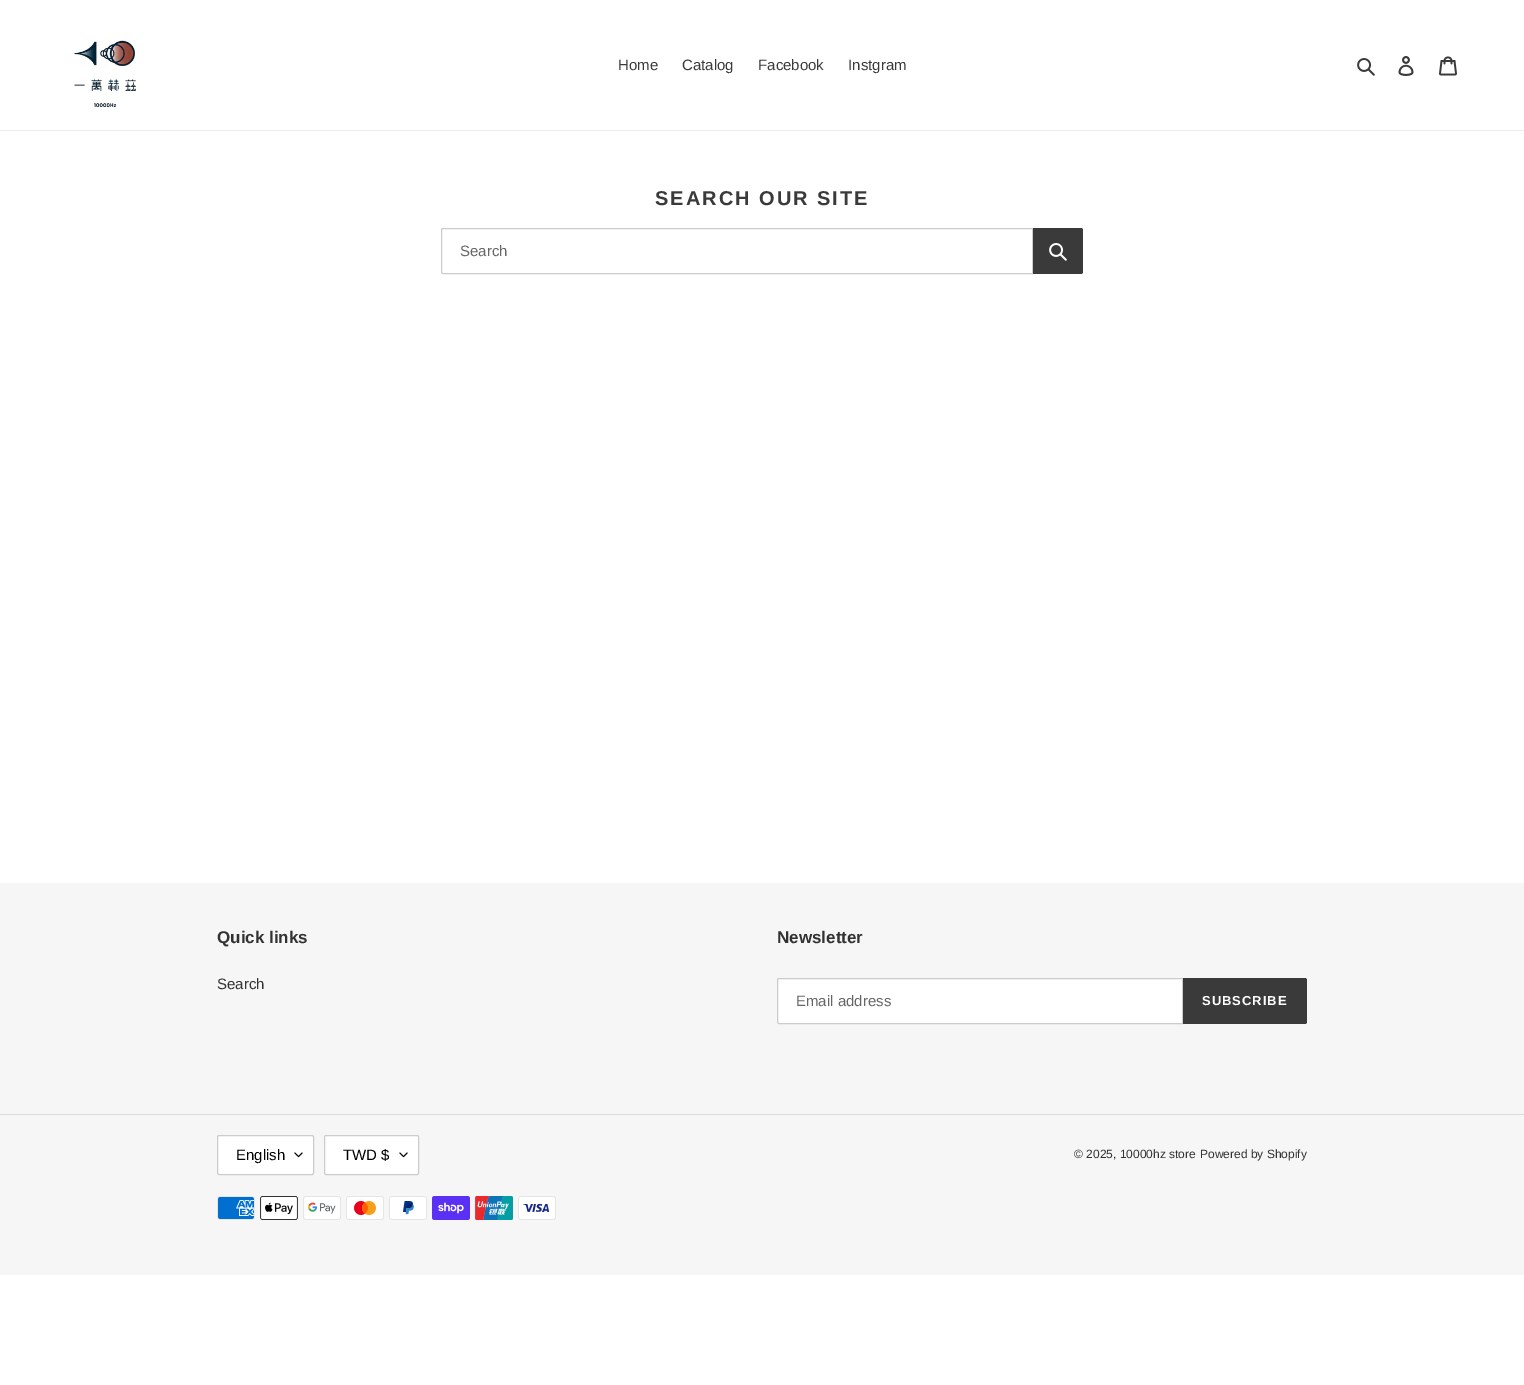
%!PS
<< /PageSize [1524 1385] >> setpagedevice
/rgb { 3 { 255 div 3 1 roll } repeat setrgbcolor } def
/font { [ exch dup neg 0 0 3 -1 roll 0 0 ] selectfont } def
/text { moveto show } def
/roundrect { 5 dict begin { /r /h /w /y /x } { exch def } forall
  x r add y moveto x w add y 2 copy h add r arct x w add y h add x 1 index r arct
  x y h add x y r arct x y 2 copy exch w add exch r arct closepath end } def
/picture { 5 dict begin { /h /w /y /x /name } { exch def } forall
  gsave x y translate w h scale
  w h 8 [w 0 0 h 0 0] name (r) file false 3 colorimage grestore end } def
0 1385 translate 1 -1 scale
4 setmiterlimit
255 255 255 rgb
0 0 1524 1385 rectfill
235 235 235 rgb
0 130 1524 1 rectfill
(img_01.rgb) 74 37 62 72 picture
(img_02.rgb) 1357 58 18 18 picture
(img_03.rgb) 1398 56 16 20 picture
(img_04.rgb) 1439 56 18 20 picture
204 204 204 rgb
443 228.5 moveto 589.5 0 rlineto 0 45 rlineto -589.5 0 rlineto -1 0 -1.5 -0.5 -1.5 -1.5 rcurveto 0 -42 rlineto 0 -1 0.5 -1.5 1.5 -1.5 rcurveto closepath stroke
58 58 58 rgb
1033 228 moveto 48 0 rlineto 1 0 2 1 2 2 rcurveto 0 42 rlineto 0 1 -1 2 -2 2 rcurveto -48 0 rlineto closepath fill
(img_05.rgb) 1049 243 18 18 picture
246 246 246 rgb
0 883 1524 392 rectfill
255 255 255 rgb
779 978.5 moveto 403.5 0 rlineto 0 45 rlineto -403.5 0 rlineto -1 0 -1.5 -0.5 -1.5 -1.5 rcurveto 0 -42 rlineto 0 -1 0.5 -1.5 1.5 -1.5 rcurveto closepath gsave fill grestore
204 204 204 rgb
stroke
58 58 58 rgb
1183 978 moveto 122 0 rlineto 1 0 2 1 2 2 rcurveto 0 42 rlineto 0 1 -1 2 -2 2 rcurveto -122 0 rlineto closepath fill
221 221 221 rgb
0 1114 1524 1 rectfill
255 255 255 rgb
217 1135 97 40 2 roundrect fill
(img_06.rgb) 294 1152 9 6 picture
204 204 204 rgb
217.5 1135.5 96 39 1.5 roundrect stroke
255 255 255 rgb
324 1135 95 40 2 roundrect fill
(img_06.rgb) 399 1152 9 6 picture
204 204 204 rgb
324.5 1135.5 94 39 1.5 roundrect stroke
(img_07.rgb) 217 1196 38 24 picture
(img_08.rgb) 260 1196 38 24 picture
(img_09.rgb) 303 1196 38 24 picture
(img_10.rgb) 346 1196 38 24 picture
(img_11.rgb) 389 1196 38 24 picture
(img_12.rgb) 432 1196 38 24 picture
(img_13.rgb) 475 1196 38 24 picture
(img_14.rgb) 518 1196 38 24 picture
/LiberationSans-Regular 15 font
58 58 58 rgb
(Home) 618 70 text
(Catalog) 682 70 text
(Facebook) 758 70 text
(Instgram) 848 70 text
/LiberationSans-Bold 20 font
655 205 moveto 2 0 (SEARCH OUR SITE) ashow
/LiberationSans-Regular 15 font
102 102 102 rgb
(Search) 460 256 text
/LiberationSans-Bold 17 font
51 50 50 rgb
(Quick links) 217 943 text
/LiberationSans-Regular 15 font
(Search) 217 989 text
/LiberationSans-Bold 17 font
(Newsletter) 777 943 text
/LiberationSans-Regular 15 font
102 102 102 rgb
(Email address) 796 1006 text
/LiberationSans-Bold 13 font
255 255 255 rgb
1202 1005 moveto 1 0 (SUBSCRIBE) ashow
/LiberationSans-Regular 15 font
0 0 0 rgb
(English) 236 1160 text
(TWD $) 343 1160 text
/LiberationSans-Regular 12 font
51 50 50 rgb
(© 2025, 10000hz store) 1074 1158 text
(Powered by Shopify) 1200 1158 text
showpage
